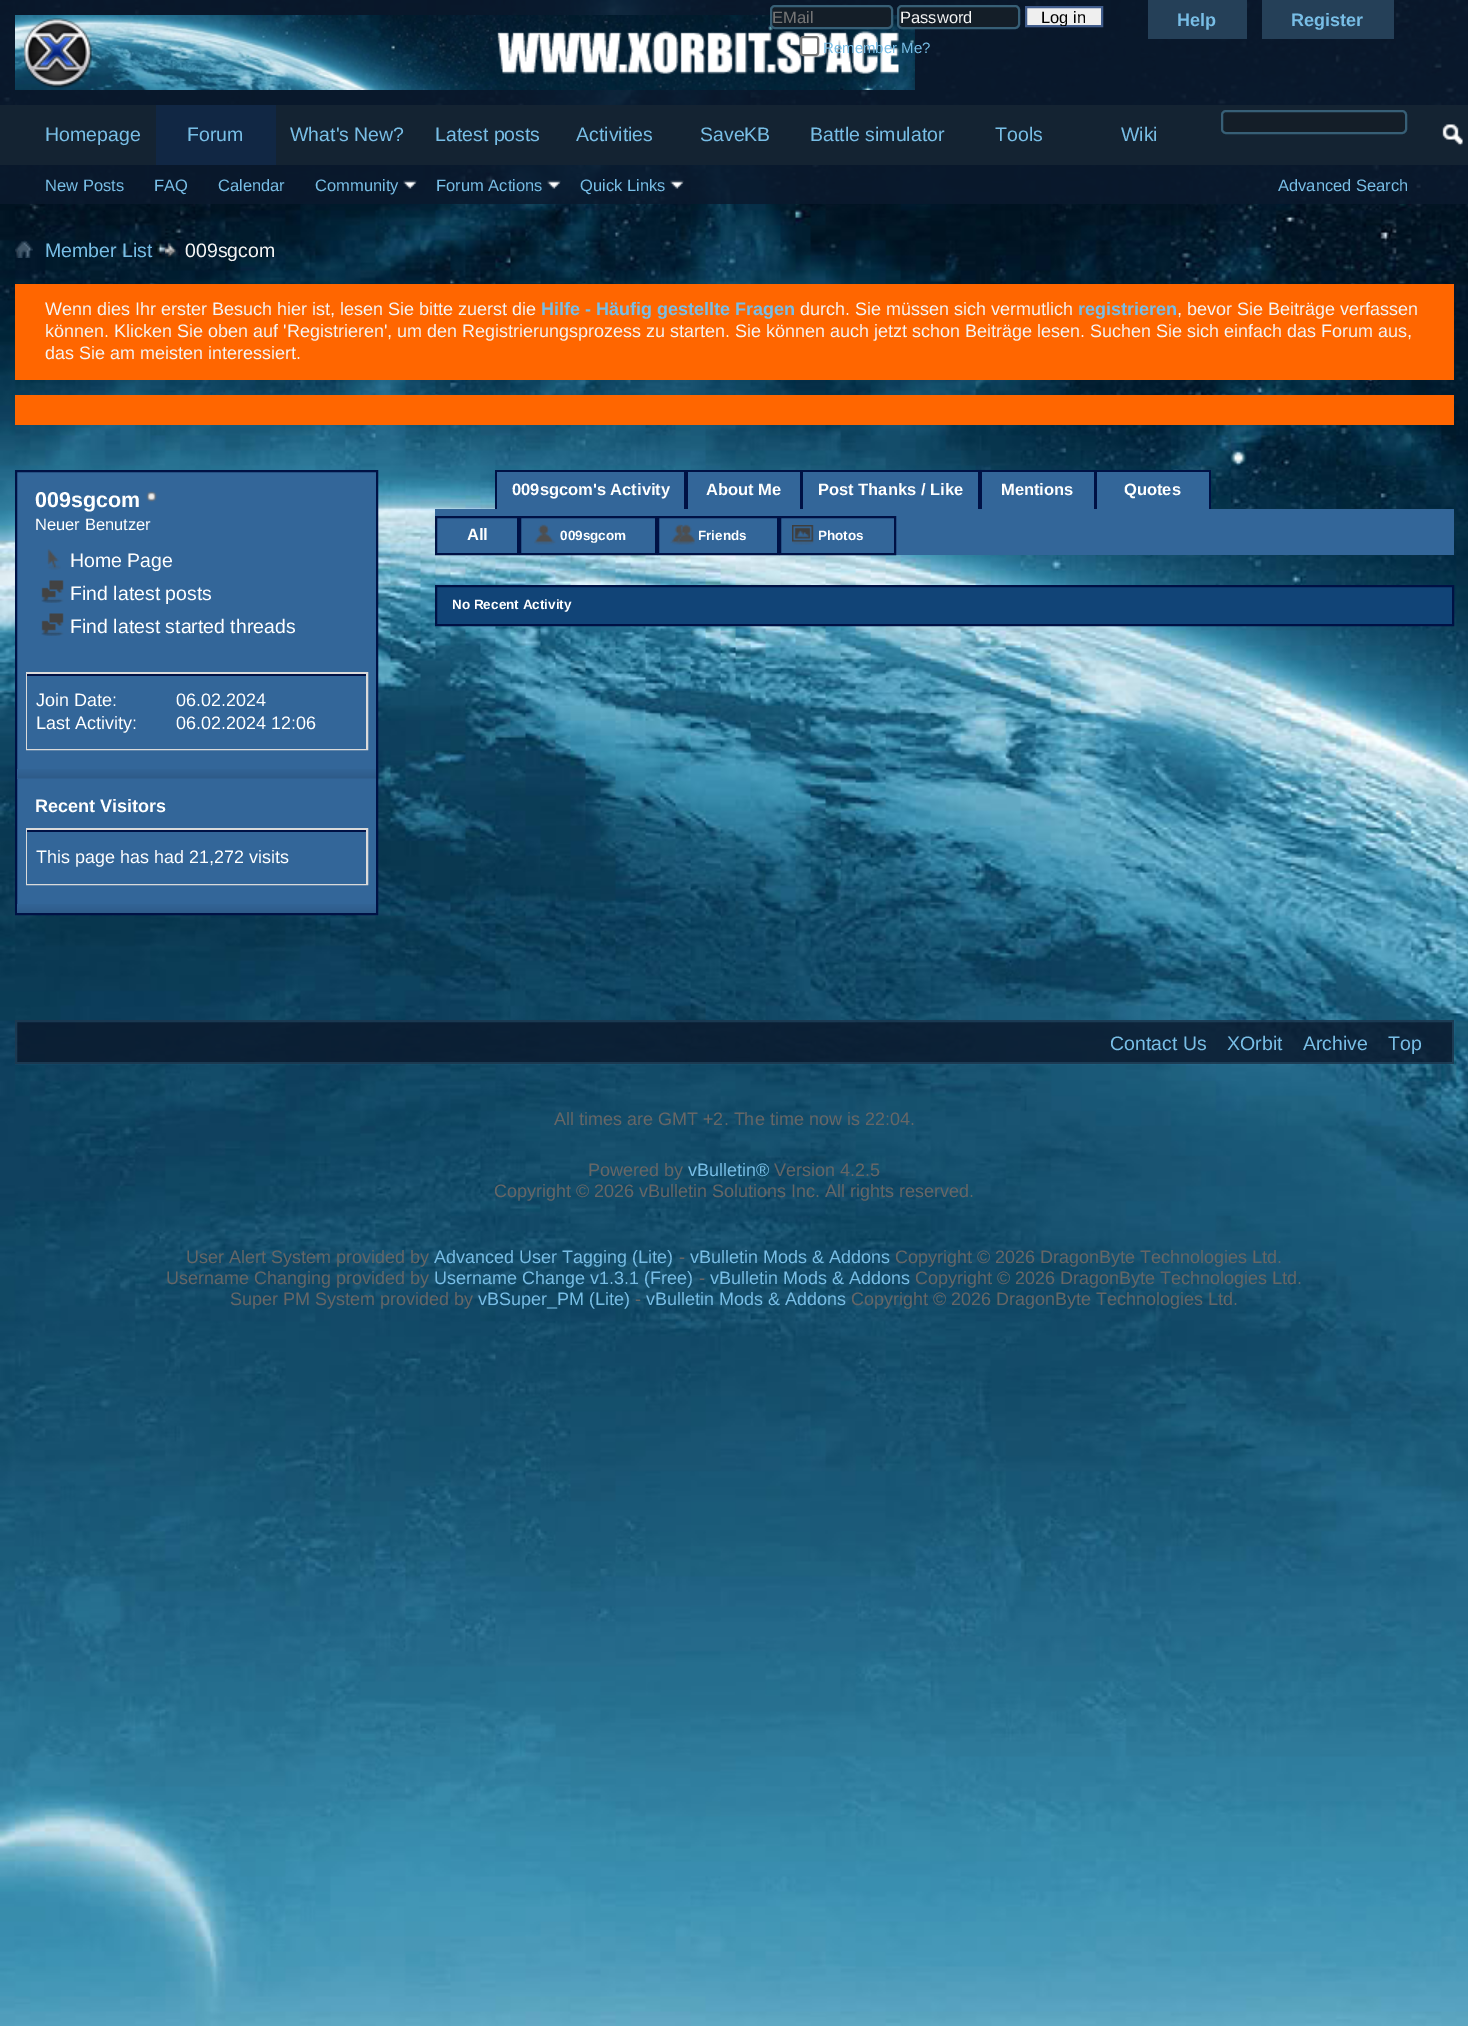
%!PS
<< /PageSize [1468 2026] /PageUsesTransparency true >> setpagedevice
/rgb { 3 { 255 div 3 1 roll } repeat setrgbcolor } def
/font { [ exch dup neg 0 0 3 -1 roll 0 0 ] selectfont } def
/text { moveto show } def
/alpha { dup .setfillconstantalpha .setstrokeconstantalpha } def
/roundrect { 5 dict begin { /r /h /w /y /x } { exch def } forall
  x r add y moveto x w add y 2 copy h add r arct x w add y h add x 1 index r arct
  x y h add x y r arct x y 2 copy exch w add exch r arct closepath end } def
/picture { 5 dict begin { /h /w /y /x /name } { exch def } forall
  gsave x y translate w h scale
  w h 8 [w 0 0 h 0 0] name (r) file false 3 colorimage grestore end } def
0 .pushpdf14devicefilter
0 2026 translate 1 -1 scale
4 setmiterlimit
255 255 255 rgb
0 0 1468 2026 rectfill
(img_01.rgb) 0 0 1468 2026 picture
0.85 alpha
10 25 45 rgb
0 0 1468 204 rectfill
1 alpha
(img_02.rgb) 15 15 900 75 picture
20 30 40 rgb
770 5 123 24 5 roundrect fill
0.5 alpha
90 160 195 rgb
2 setlinewidth
771 6 121 22 4 roundrect stroke
1 alpha
20 30 40 rgb
897 5 123 24 5 roundrect fill
0.5 alpha
90 160 195 rgb
898 6 121 22 4 roundrect stroke
1 alpha
239 239 239 rgb
1026 7 moveto 76 0 rlineto 0 19 rlineto -76 0 rlineto closepath gsave fill grestore
65 93 141 rgb
stroke
255 255 255 rgb
801 37 17 18 2 roundrect gsave fill grestore
118 118 118 rgb
stroke
37 64 88 rgb
1148 0 99 39 rectfill
1262 0 132 39 rectfill
20 35 50 rgb
0 105 1468 60 rectfill
17 39 68 rgb
156 105 120 60 rectfill
(img_03.rgb) 403 180 14 9 picture
(img_04.rgb) 547 180 14 9 picture
(img_05.rgb) 670 180 14 9 picture
20 30 40 rgb
1221 110 186 24 5 roundrect fill
0.5 alpha
90 160 195 rgb
1222 111 184 22 4 roundrect stroke
1 alpha
(img_06.rgb) 1442 124 21 22 picture
(img_07.rgb) 15 240 18 18 picture
(img_08.rgb) 165 242 11 16 picture
255 102 0 rgb
15 284 1439 96 rectfill
15 395 1439 30 rectfill
51 102 153 rgb
16 471 moveto 361 0 rlineto 0 443 rlineto -361 0 rlineto closepath gsave fill grestore
0 17 68 rgb
stroke
(img_09.rgb) 146 491 11 11 picture
(img_10.rgb) 47 549 14 21 picture
(img_11.rgb) 41 580 23 23 picture
(img_11.rgb) 41 613 23 23 picture
218 218 218 rgb
27 673 340 76 rectstroke
51 102 153 rgb
27 676 339 73 rectfill
0 17 68 rgb
27 674 339 2 rectfill
(img_12.rgb) 17 769 359 10 picture
218 218 218 rgb
27 829 340 55 rectstroke
51 102 153 rgb
27 832 339 52 rectfill
0 17 68 rgb
27 830 339 2 rectfill
(img_13.rgb) 17 904 359 9 picture
51 102 153 rgb
497 472 187 37 rectfill
0 17 68 rgb
495 470 716 2 rectfill
684 470 4 39 rectfill
495 470 2 39 rectfill
51 102 153 rgb
688 472 112 37 rectfill
0 17 68 rgb
800 470 3 39 rectfill
51 102 153 rgb
803 472 175 37 rectfill
0 17 68 rgb
978 470 4 39 rectfill
51 102 153 rgb
982 472 112 37 rectfill
0 17 68 rgb
1094 470 3 39 rectfill
51 102 153 rgb
1097 472 112 37 rectfill
0 17 68 rgb
1209 470 2 39 rectfill
51 102 153 rgb
435 509 1019 7 rectfill
437 516 1017 39 rectfill
0 17 68 rgb
436 517 82 37 rectstroke
520 517 136 37 rectstroke
(img_14.rgb) 534 524 22 21 picture
658 517 120 37 rectstroke
(img_15.rgb) 670 524 25 21 picture
780 517 115 37 rectstroke
(img_16.rgb) 792 525 22 20 picture
17 68 119 rgb
436 586 moveto 1017 0 rlineto 0 39 rlineto -1017 0 rlineto closepath gsave fill grestore
0 17 68 rgb
stroke
0.85 alpha
10 25 45 rgb
15 1020 1439 44 rectfill
0.2 alpha
90 160 195 rgb
16 1021 1437 42 rectstroke
/LiberationSans-Regular 16.5 font
1 alpha
117 117 117 rgb
(EMail) 772 23 text
245 245 245 rgb
(Password) 900 23 text
gsave
1026 8 75 18 rectclip
0 0 0 rgb
(Log in) 1041 23 text
grestore
/LiberationSans-Regular 15 font
120 190 230 rgb
(Remember Me?) 823 53 text
/LiberationSans-Bold 18 font
(Help) 1177 26 text
(Register) 1291 26 text
/LiberationSans-Regular 19.5 font
(Homepage) 45 141 text
(Forum) 187 141 text
(What's New?) 290 141 text
(Latest posts) 435 141 text
(Activities) 576 141 text
(SaveKB) 700 141 text
(Battle simulator) 810 141 text
(Tools) 995 141 text
(Wiki) 1121 141 text
/LiberationSans-Regular 16.5 font
(New Posts) 45 191 text
(FAQ) 154 191 text
(Calendar) 218 191 text
(Community) 315 191 text
(Forum Actions) 436 191 text
(Quick Links) 580 191 text
(Advanced Search) 1278 191 text
/LiberationSans-Regular 19.5 font
(Member List) 45 257 text
245 245 245 rgb
(009sgcom) 185 257 text
/LiberationSans-Regular 18 font
(Wenn dies Ihr erster Besuch hier ist, lesen Sie bitte zuerst die) 45 315 text
/LiberationSans-Bold 18 font
120 190 230 rgb
(Hilfe - Häufig gestellte Fragen) 541 315 text
/LiberationSans-Regular 18 font
245 245 245 rgb
(durch. Sie müssen sich vermutlich) 800 315 text
/LiberationSans-Bold 18 font
120 190 230 rgb
(registrieren) 1078 315 text
/LiberationSans-Regular 18 font
245 245 245 rgb
(, bevor Sie Beiträge verfassen) 1177 315 text
(können. Klicken Sie oben auf 'Registrieren', um den Registrierungsprozess zu starten. Sie können auch jetzt schon Beiträge lesen. Suchen Sie sich einfach das Forum aus,) 45 337 text
(das Sie am meisten interessiert.) 45 359 text
/LiberationSans-Bold 21.5 font
255 255 255 rgb
(009sgcom) 35 507 text
/LiberationSans-Regular 16.5 font
(Neuer Benutzer) 35 530 text
/LiberationSans-Regular 19.5 font
(Home Page) 70 567 text
(Find latest posts) 70 600 text
(Find latest started threads) 70 633 text
/LiberationSans-Regular 18 font
(Join Date:) 36 706 text
(06.02.2024) 176 706 text
(Last Activity:) 36 729 text
(06.02.2024 12:06) 176 729 text
/LiberationSans-Bold 18 font
(Recent Visitors) 35 812 text
/LiberationSans-Regular 18 font
(This page has had 21,272 visits) 36 863 text
/LiberationSans-Bold 16.5 font
(009sgcom's Activity) 512 495 text
(About Me) 706 495 text
(Post Thanks / Like) 818 495 text
(Mentions) 1001 495 text
(Quotes) 1124 495 text
(All) 467 540 text
/LiberationSans-Bold 13.5 font
(009sgcom) 560 540 text
(Friends) 698 540 text
(Photos) 818 540 text
(No Recent Activity) 452 609 text
/LiberationSans-Regular 19.5 font
120 190 230 rgb
(Contact Us) 1110 1050 text
(XOrbit) 1227 1050 text
(Archive) 1303 1050 text
(Top) 1388 1050 text
/LiberationSans-Regular 18 font
102 102 102 rgb
(All times are GMT +2. The time now is 22:04.) 554 1125 text
(Powered by) 588 1176 text
120 190 230 rgb
(vBulletin®) 688 1176 text
102 102 102 rgb
(Version 4.2.5) 774 1176 text
(Copyright © 2026 vBulletin Solutions Inc. All rights reserved.) 494 1197 text
(User Alert System provided by) 186 1263 text
120 190 230 rgb
(Advanced User Tagging \(Lite\)) 434 1263 text
102 102 102 rgb
(-) 679 1263 text
120 190 230 rgb
(vBulletin Mods & Addons) 690 1263 text
102 102 102 rgb
(Copyright © 2026 DragonByte Technologies Ltd.) 895 1263 text
(Username Changing provided by) 166 1284 text
120 190 230 rgb
(Username Change v1.3.1 \(Free\)) 434 1284 text
102 102 102 rgb
(-) 699 1284 text
120 190 230 rgb
(vBulletin Mods & Addons) 710 1284 text
102 102 102 rgb
(Copyright © 2026 DragonByte Technologies Ltd.) 915 1284 text
(Super PM System provided by) 230 1305 text
120 190 230 rgb
(vBSuper_PM \(Lite\)) 478 1305 text
102 102 102 rgb
(-) 635 1305 text
120 190 230 rgb
(vBulletin Mods & Addons) 646 1305 text
102 102 102 rgb
(Copyright © 2026 DragonByte Technologies Ltd.) 851 1305 text
.poppdf14devicefilter showpage
